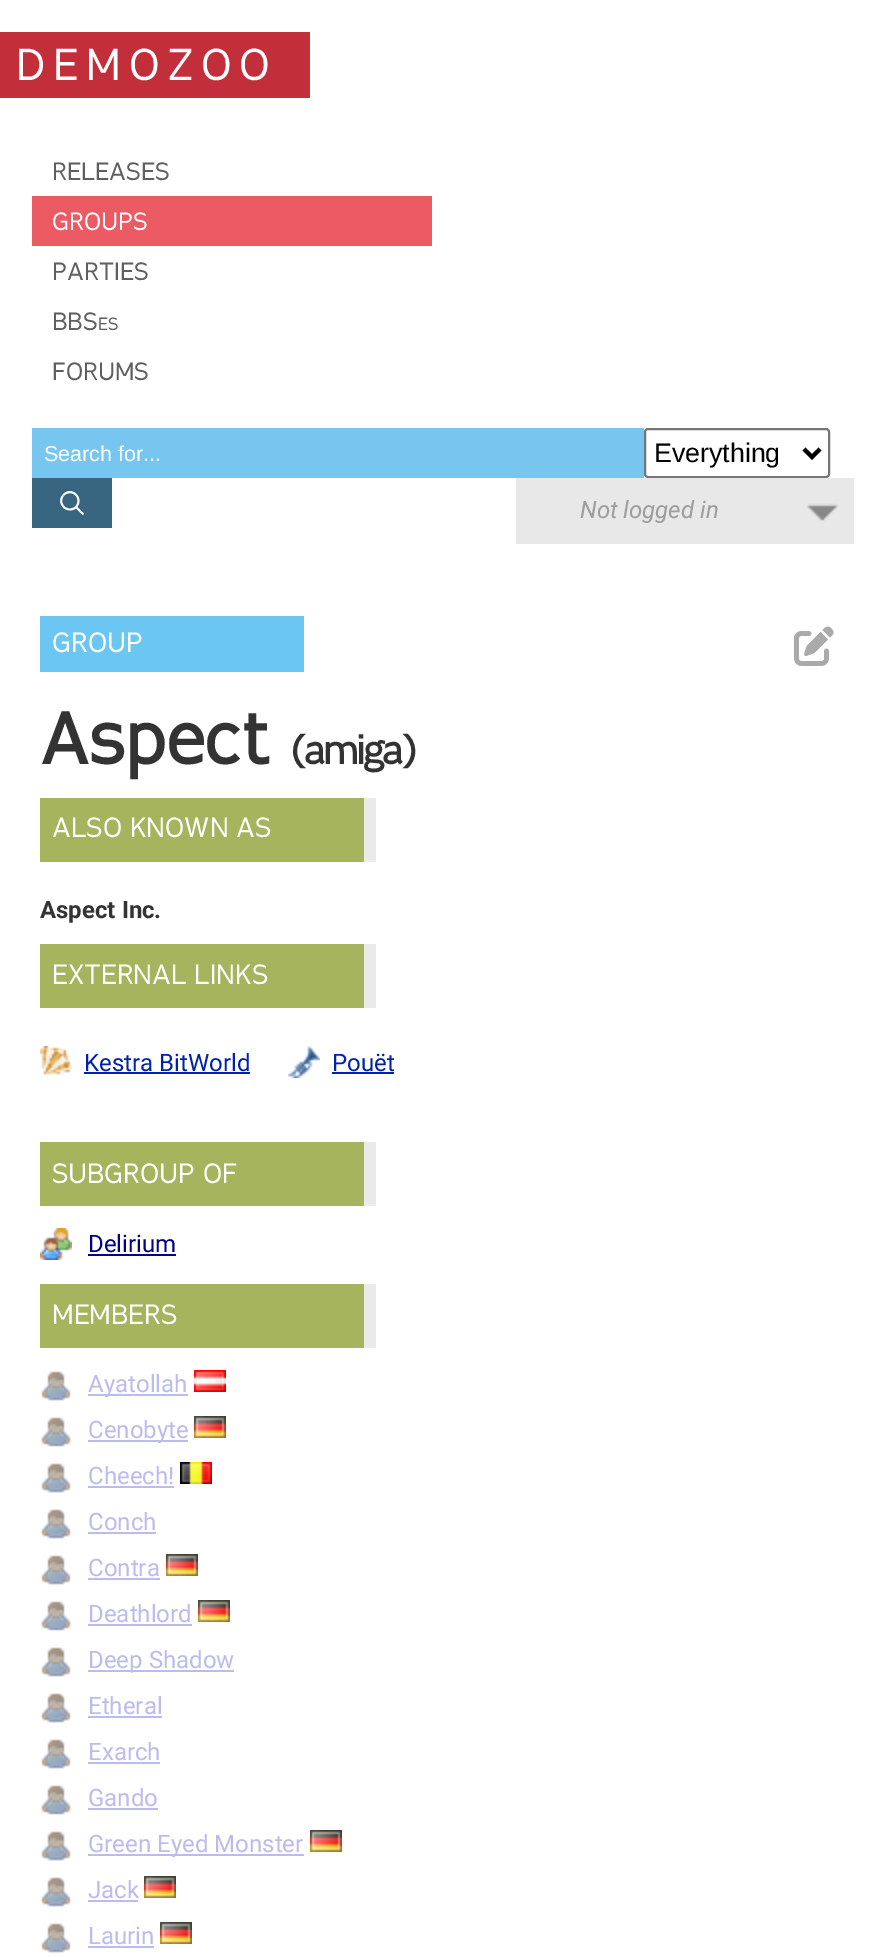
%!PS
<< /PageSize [886 1957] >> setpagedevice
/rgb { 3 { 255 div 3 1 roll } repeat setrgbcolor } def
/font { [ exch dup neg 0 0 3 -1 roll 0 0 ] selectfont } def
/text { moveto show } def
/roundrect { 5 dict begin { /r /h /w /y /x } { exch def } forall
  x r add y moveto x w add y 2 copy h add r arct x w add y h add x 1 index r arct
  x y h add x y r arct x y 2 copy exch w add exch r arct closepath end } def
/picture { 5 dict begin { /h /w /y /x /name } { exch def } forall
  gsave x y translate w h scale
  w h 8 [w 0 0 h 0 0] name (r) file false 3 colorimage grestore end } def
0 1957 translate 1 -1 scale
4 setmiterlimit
255 255 255 rgb
0 0 886 1957 rectfill
195 46 59 rgb
0 32 310 66 rectfill
236 90 100 rgb
32 196 400 50 rectfill
119 198 239 rgb
32 428 612 50 rectfill
118 118 118 rgb
2 setlinewidth
645 429 184 48 3 roundrect stroke
0 0 0 rgb
4 setlinewidth
804 449 moveto 8 8 rlineto 8 -8 rlineto stroke
56 101 128 rgb
32 478 80 50 rectfill
(img_01.rgb) 60 491 24 24 picture
232 232 232 rgb
516 478 338 66 rectfill
(img_02.rgb) 807 503 31 18 picture
107 199 241 rgb
40 616 264 56 rectfill
(img_03.rgb) 794 626 40 40 picture
165 180 93 rgb
40 798 324 64 rectfill
234 234 234 rgb
364 798 12 64 rectfill
165 180 93 rgb
40 944 324 64 rectfill
234 234 234 rgb
364 944 12 64 rectfill
(img_04.rgb) 40 1046 32 29 picture
0 34 170 rgb
84 1072 166 2 rectfill
(img_05.rgb) 288 1046 32 32 picture
332 1072 62 2 rectfill
165 180 93 rgb
40 1142 324 64 rectfill
234 234 234 rgb
364 1142 12 64 rectfill
(img_06.rgb) 40 1228 32 32 picture
0 0 136 rgb
88 1254 88 2 rectfill
165 180 93 rgb
40 1284 324 64 rectfill
234 234 234 rgb
364 1284 12 64 rectfill
(img_07.rgb) 41 1371 30 30 picture
187 187 238 rgb
88 1394 100 2 rectfill
(img_08.rgb) 194 1370 32 22 picture
(img_07.rgb) 41 1417 30 30 picture
88 1440 100 2 rectfill
(img_09.rgb) 194 1416 32 22 picture
(img_07.rgb) 41 1463 30 30 picture
88 1486 86 2 rectfill
(img_10.rgb) 180 1462 32 22 picture
(img_07.rgb) 41 1509 30 30 picture
88 1532 68 2 rectfill
(img_07.rgb) 41 1555 30 30 picture
88 1578 72 2 rectfill
(img_09.rgb) 166 1554 32 22 picture
(img_07.rgb) 41 1601 30 30 picture
88 1624 104 2 rectfill
(img_09.rgb) 198 1600 32 22 picture
(img_07.rgb) 41 1647 30 30 picture
88 1670 146 2 rectfill
(img_07.rgb) 41 1693 30 30 picture
88 1716 74 2 rectfill
(img_07.rgb) 41 1739 30 30 picture
88 1762 72 2 rectfill
(img_07.rgb) 41 1785 30 30 picture
88 1808 70 2 rectfill
(img_07.rgb) 41 1831 30 30 picture
88 1854 216 2 rectfill
(img_09.rgb) 310 1830 32 22 picture
(img_07.rgb) 41 1877 30 30 picture
88 1900 50 2 rectfill
(img_09.rgb) 144 1876 32 22 picture
(img_07.rgb) 41 1923 30 30 picture
88 1946 66 2 rectfill
(img_09.rgb) 160 1922 32 22 picture
/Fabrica-Regular 42.75 font
255 255 255 rgb
16 80 moveto 8 0 (DEMOZOO) ashow
/Fabrica-Regular 24 font
94 95 95 rgb
(RELEASES) 52 180 text
255 255 255 rgb
(GROUPS) 52 230 text
94 95 95 rgb
(PARTIES) 52 280 text
(BBS) 52 330 text
/Fabrica-Regular 17 font
(ES) 98 330 text
/Fabrica-Regular 24 font
(FORUMS) 52 380 text
/LiberationSans-Regular 21.5 font
255 255 255 rgb
(Search for...) 44 461 text
/LiberationSans-Regular 26.75 font
0 0 0 rgb
(Everything) 654 462 text
/Roboto-Italic 24 font
157 157 157 rgb
(Not logged in) 580 518 text
/Fabrica-Regular 26.75 font
255 255 255 rgb
(GROUP) 52 652 text
/Fabrica-Bold 69.5 font
51 51 51 rgb
(Aspect) 40 764 text
/Fabrica-Bold 37.5 font
291 764 moveto -2 0 (\(amiga\)) ashow
/Fabrica-Regular 26.75 font
255 255 255 rgb
(ALSO KNOWN AS) 52 837 text
/Roboto-Bold 24 font
51 51 51 rgb
(Aspect Inc.) 40 918 text
/Fabrica-Regular 26.75 font
255 255 255 rgb
(EXTERNAL LINKS) 52 984 text
/Roboto-Regular 24 font
0 34 170 rgb
(Kestra BitWorld) 84 1071 text
(Pouët) 332 1071 text
/Fabrica-Regular 26.75 font
255 255 255 rgb
(SUBGROUP OF) 52 1183 text
/Roboto-Regular 24 font
0 0 136 rgb
(Delirium) 88 1252 text
/Fabrica-Regular 26.75 font
255 255 255 rgb
(MEMBERS) 52 1324 text
/Roboto-Regular 24 font
187 187 238 rgb
(Ayatollah) 88 1392 text
(Cenobyte) 88 1438 text
(Cheech!) 88 1484 text
(Conch) 88 1530 text
(Contra) 88 1576 text
(Deathlord) 88 1622 text
(Deep Shadow) 88 1668 text
(Etheral) 88 1714 text
(Exarch) 88 1760 text
(Gando) 88 1806 text
(Green Eyed Monster) 88 1852 text
(Jack) 88 1898 text
(Laurin) 88 1944 text
showpage
